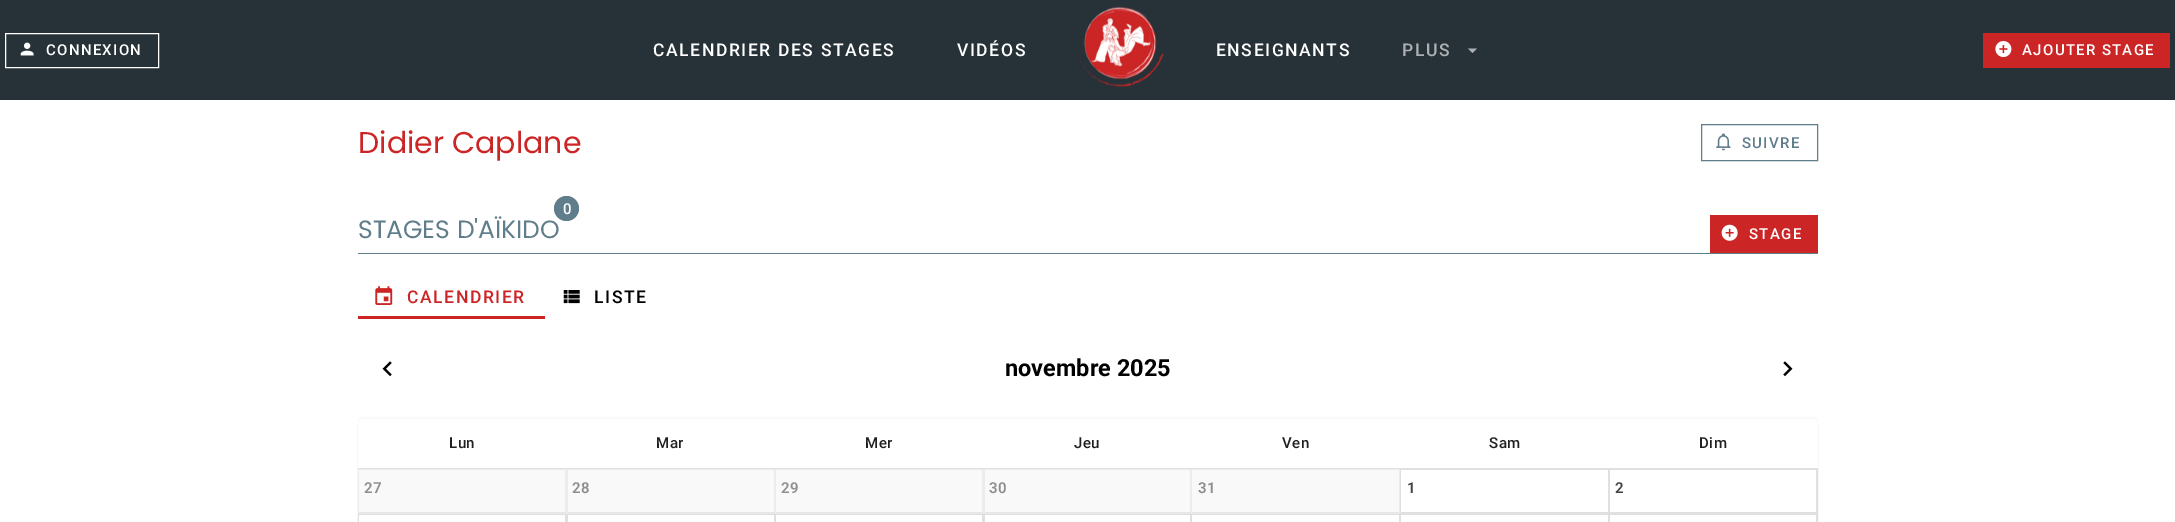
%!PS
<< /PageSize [2175 522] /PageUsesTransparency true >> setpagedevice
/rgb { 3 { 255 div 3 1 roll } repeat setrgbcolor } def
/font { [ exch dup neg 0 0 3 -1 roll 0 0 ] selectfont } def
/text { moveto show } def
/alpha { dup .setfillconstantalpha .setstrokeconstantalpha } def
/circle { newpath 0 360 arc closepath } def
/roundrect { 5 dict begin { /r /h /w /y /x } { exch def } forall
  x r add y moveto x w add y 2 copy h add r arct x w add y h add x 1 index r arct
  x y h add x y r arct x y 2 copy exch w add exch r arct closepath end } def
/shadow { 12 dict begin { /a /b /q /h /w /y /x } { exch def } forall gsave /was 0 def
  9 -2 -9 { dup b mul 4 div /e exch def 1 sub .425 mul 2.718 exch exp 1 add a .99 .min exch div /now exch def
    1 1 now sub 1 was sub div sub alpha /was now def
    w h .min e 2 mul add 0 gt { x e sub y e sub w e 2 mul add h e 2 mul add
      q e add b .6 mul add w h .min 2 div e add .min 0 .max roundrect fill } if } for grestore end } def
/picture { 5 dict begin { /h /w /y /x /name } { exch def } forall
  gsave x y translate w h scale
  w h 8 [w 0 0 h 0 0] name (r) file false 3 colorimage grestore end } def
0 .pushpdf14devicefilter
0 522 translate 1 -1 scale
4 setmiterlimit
255 255 255 rgb
0 0 2175 522 rectfill
38 50 56 rgb
0 0 2175 100 rectfill
255 255 255 rgb
5.5 33.5 153 34 rectstroke
(img_01.rgb) 20 42 14 14 picture
(img_02.rgb) 1077 7 87 80 picture
173 177 179 rgb
1468 48.5 moveto 4.5 4.5 rlineto 4.5 -4.5 rlineto closepath fill
204 37 38 rgb
1983 33 187 35 rectfill
(img_03.rgb) 1995 41 17 16 picture
96 125 139 rgb
1701.5 124.5 116 36 rectstroke
(img_04.rgb) 1716 133 15 18 picture
358 253 1460 1 rectfill
566.5 208.5 12.5 circle fill
204 37 38 rgb
1710 215 108 38 rectfill
(img_05.rgb) 1721 224 17 17 picture
(img_06.rgb) 375 286 18 19 picture
358 316 187 3 rectfill
(img_07.rgb) 563 290 17 14 picture
(img_08.rgb) 382 361 10 16 picture
(img_09.rgb) 1783 361 10 16 picture
gsave
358 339 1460 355 rectclip
0 0 0 rgb
358 420 1460 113 5 2 0.12 shadow
grestore
0 0 0 rgb
358 420 1460 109 5 0.5 0.14 shadow
255 255 255 rgb
358 419 1460 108 5 roundrect fill
224 224 224 rgb
358 468 1460 1 rectfill
249 249 249 rgb
358 470 1042 44 rectfill
236 236 236 rgb
358 469 1042 1 rectfill
566 469 moveto 0 45 rlineto -1 -2 rlineto 0 -42 rlineto closepath fill
0.12 alpha
102 102 102 rgb
566 514 moveto -208 0 rlineto 1 -2 rlineto 206 0 rlineto closepath fill
1 alpha
236 236 236 rgb
358 514 moveto 0 -45 rlineto 1 1 rlineto 0 42 rlineto closepath fill
775 469 moveto 0 45 rlineto -1 -2 rlineto 0 -42 rlineto closepath fill
0.12 alpha
102 102 102 rgb
775 514 moveto -209 0 rlineto 2 -2 rlineto 206 0 rlineto closepath fill
1 alpha
236 236 236 rgb
566 514 moveto 0 -45 rlineto 2 1 rlineto 0 42 rlineto closepath fill
984 469 moveto 0 45 rlineto -2 -2 rlineto 0 -42 rlineto closepath fill
0.12 alpha
102 102 102 rgb
984 514 moveto -209 0 rlineto 1 -2 rlineto 206 0 rlineto closepath fill
1 alpha
236 236 236 rgb
775 514 moveto 0 -45 rlineto 1 1 rlineto 0 42 rlineto closepath fill
1191 469 moveto 0 45 rlineto -1 -2 rlineto 0 -42 rlineto closepath fill
0.12 alpha
102 102 102 rgb
1191 514 moveto -207 0 rlineto 1 -2 rlineto 205 0 rlineto closepath fill
1 alpha
236 236 236 rgb
984 514 moveto 0 -45 rlineto 1 1 rlineto 0 42 rlineto closepath fill
1400 469 moveto 0 45 rlineto -1 -2 rlineto 0 -42 rlineto closepath fill
0.12 alpha
102 102 102 rgb
1400 514 moveto -209 0 rlineto 1 -2 rlineto 207 0 rlineto closepath fill
1 alpha
236 236 236 rgb
1191 514 moveto 0 -45 rlineto 1 1 rlineto 0 42 rlineto closepath fill
224 224 224 rgb
1400 469 418 1 rectfill
1609 469 moveto 0 45 rlineto -1 -2 rlineto 0 -42 rlineto closepath fill
0.12 alpha
0 0 0 rgb
1609 514 moveto -209 0 rlineto 1 -2 rlineto 207 0 rlineto closepath fill
1 alpha
224 224 224 rgb
1400 514 moveto 0 -45 rlineto 1 1 rlineto 0 42 rlineto closepath fill
1818 469 moveto 0 45 rlineto -2 -2 rlineto 0 -42 rlineto closepath fill
0.12 alpha
0 0 0 rgb
1818 514 moveto -209 0 rlineto 1 -2 rlineto 206 0 rlineto closepath fill
1 alpha
224 224 224 rgb
1609 514 moveto 0 -45 rlineto 1 1 rlineto 0 42 rlineto closepath fill
358 514 1460 1 rectfill
566 514 moveto 0 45 rlineto -1 -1 rlineto 0 -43 rlineto closepath fill
358 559 moveto 0 -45 rlineto 1 1 rlineto 0 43 rlineto closepath fill
775 514 moveto 0 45 rlineto -1 -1 rlineto 0 -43 rlineto closepath fill
566 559 moveto 0 -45 rlineto 2 1 rlineto 0 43 rlineto closepath fill
984 514 moveto 0 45 rlineto -2 -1 rlineto 0 -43 rlineto closepath fill
775 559 moveto 0 -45 rlineto 1 1 rlineto 0 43 rlineto closepath fill
1191 514 moveto 0 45 rlineto -1 -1 rlineto 0 -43 rlineto closepath fill
984 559 moveto 0 -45 rlineto 1 1 rlineto 0 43 rlineto closepath fill
1400 514 moveto 0 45 rlineto -1 -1 rlineto 0 -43 rlineto closepath fill
1191 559 moveto 0 -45 rlineto 1 1 rlineto 0 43 rlineto closepath fill
1609 514 moveto 0 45 rlineto -1 -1 rlineto 0 -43 rlineto closepath fill
1400 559 moveto 0 -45 rlineto 1 1 rlineto 0 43 rlineto closepath fill
1818 514 moveto 0 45 rlineto -2 -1 rlineto 0 -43 rlineto closepath fill
1609 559 moveto 0 -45 rlineto 1 1 rlineto 0 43 rlineto closepath fill
/Roboto-Medium 15 font
255 255 255 rgb
46 55 moveto 1.3 0 (CONNEXION) ashow
/Roboto-Medium 17.5 font
653 56 moveto 1.6 0 (CALENDRIER DES STAGES) ashow
957 56 moveto 1.6 0 (VIDÉOS) ashow
1216 56 moveto 1.6 0 (ENSEIGNANTS) ashow
173 177 179 rgb
1402 56 moveto 1.6 0 (PLUS) ashow
/Roboto-Medium 15 font
255 255 255 rgb
2022 55 moveto 1.3 0 (AJOUTER STAGE) ashow
/Poppins-Regular 30 font
204 37 38 rgb
(Didier Caplane) 358 153 text
/Roboto-Medium 15 font
96 125 139 rgb
1742 148 moveto 1.3 0 (SUIVRE) ashow
255 255 255 rgb
(0) 563 214 text
/Poppins-Regular 25 font
96 125 139 rgb
(STAGES D'AÏKIDO) 358 238 text
/Roboto-Medium 15 font
255 255 255 rgb
1749 239 moveto 1.3 0 (STAGE) ashow
/Roboto-Medium 17.5 font
204 37 38 rgb
407 303 moveto 1.6 0 (CALENDRIER) ashow
0 0 0 rgb
594 303 moveto 1.6 0 (LISTE) ashow
/Roboto-Bold 23.5 font
(novembre 2025) 1005 376 text
/Roboto-Medium 15 font
33 33 33 rgb
449 448 moveto 0.5 0 (Lun) ashow
656 448 moveto 0.5 0 (Mar) ashow
865 448 moveto 0.5 0 (Mer) ashow
1074 448 moveto 0.5 0 (Jeu) ashow
1282 448 moveto 0.5 0 (Ven) ashow
1489 448 moveto 0.5 0 (Sam) ashow
1699 448 moveto 0.5 0 (Dim) ashow
/Roboto-SemiBold 15 font
142 142 142 rgb
364 493 moveto 0.5 0 (27) ashow
572 493 moveto 0.5 0 (28) ashow
781 493 moveto 0.5 0 (29) ashow
989 493 moveto 0.5 0 (30) ashow
1198 493 moveto 0.5 0 (31) ashow
66 66 66 rgb
1407 493 moveto 0.5 0 (1) ashow
1615 493 moveto 0.5 0 (2) ashow
.poppdf14devicefilter showpage
